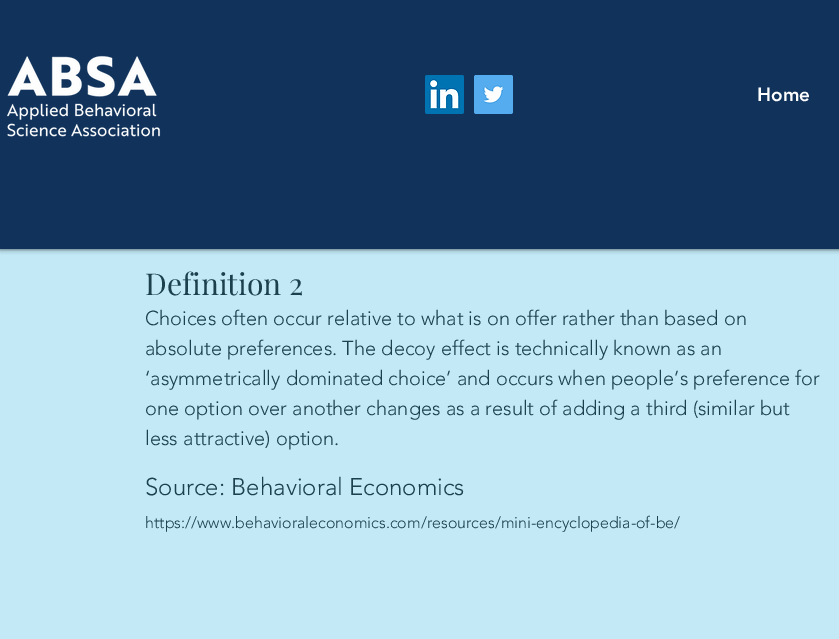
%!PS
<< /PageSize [839 639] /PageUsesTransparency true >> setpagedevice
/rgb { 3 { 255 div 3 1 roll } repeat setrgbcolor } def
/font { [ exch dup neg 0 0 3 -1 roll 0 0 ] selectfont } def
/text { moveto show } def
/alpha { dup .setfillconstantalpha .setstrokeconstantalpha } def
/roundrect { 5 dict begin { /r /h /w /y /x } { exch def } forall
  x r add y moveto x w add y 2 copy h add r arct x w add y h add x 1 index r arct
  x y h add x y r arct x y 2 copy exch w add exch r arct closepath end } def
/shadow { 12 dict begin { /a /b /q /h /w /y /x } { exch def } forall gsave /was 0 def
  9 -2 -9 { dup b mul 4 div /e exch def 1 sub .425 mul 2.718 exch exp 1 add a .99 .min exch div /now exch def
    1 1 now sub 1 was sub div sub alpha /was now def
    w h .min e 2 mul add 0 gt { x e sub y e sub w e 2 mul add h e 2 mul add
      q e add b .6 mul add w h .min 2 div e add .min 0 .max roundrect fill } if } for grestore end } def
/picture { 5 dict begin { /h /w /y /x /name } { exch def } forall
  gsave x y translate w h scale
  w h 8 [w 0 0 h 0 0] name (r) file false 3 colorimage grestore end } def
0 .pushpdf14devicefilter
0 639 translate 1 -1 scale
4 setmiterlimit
195 233 247 rgb
0 0 839 639 rectfill
0 0 0 rgb
0 0 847 249 0 2.5 0.7 shadow
16 50 91 rgb
0 0 839 249 rectfill
(img_01.rgb) 7 55 154 82 picture
(img_02.rgb) 425 75 39 39 picture
(img_03.rgb) 474 75 39 39 picture
/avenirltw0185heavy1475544-Black 19 font
255 255 255 rgb
(Home) 757 101 text
/PlayfairDisplay-Regular 30 font
29 64 77 rgb
(Definition 2) 145 295 text
/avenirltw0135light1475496-Light 20 font
(Choices often occur relative to what is on offer rather than based on) 145 325 text
(absolute preferences. The decoy effect is technically known as an) 145 355 text
(‘asymmetrically dominated choice’ and occurs when people’s preference for) 145 385 text
(one option over another changes as a result of adding a third \(similar but) 145 415 text
(less attractive\) option.) 145 445 text
/avenirltw0135light1475496-Light 24 font
(Source: Behavioral Economics) 145 495 text
/avenirltw0135light1475496-Light 16 font
(https://www.behavioraleconomics.com/resources/mini-encyclopedia-of-be/) 145 528 text
.poppdf14devicefilter showpage
